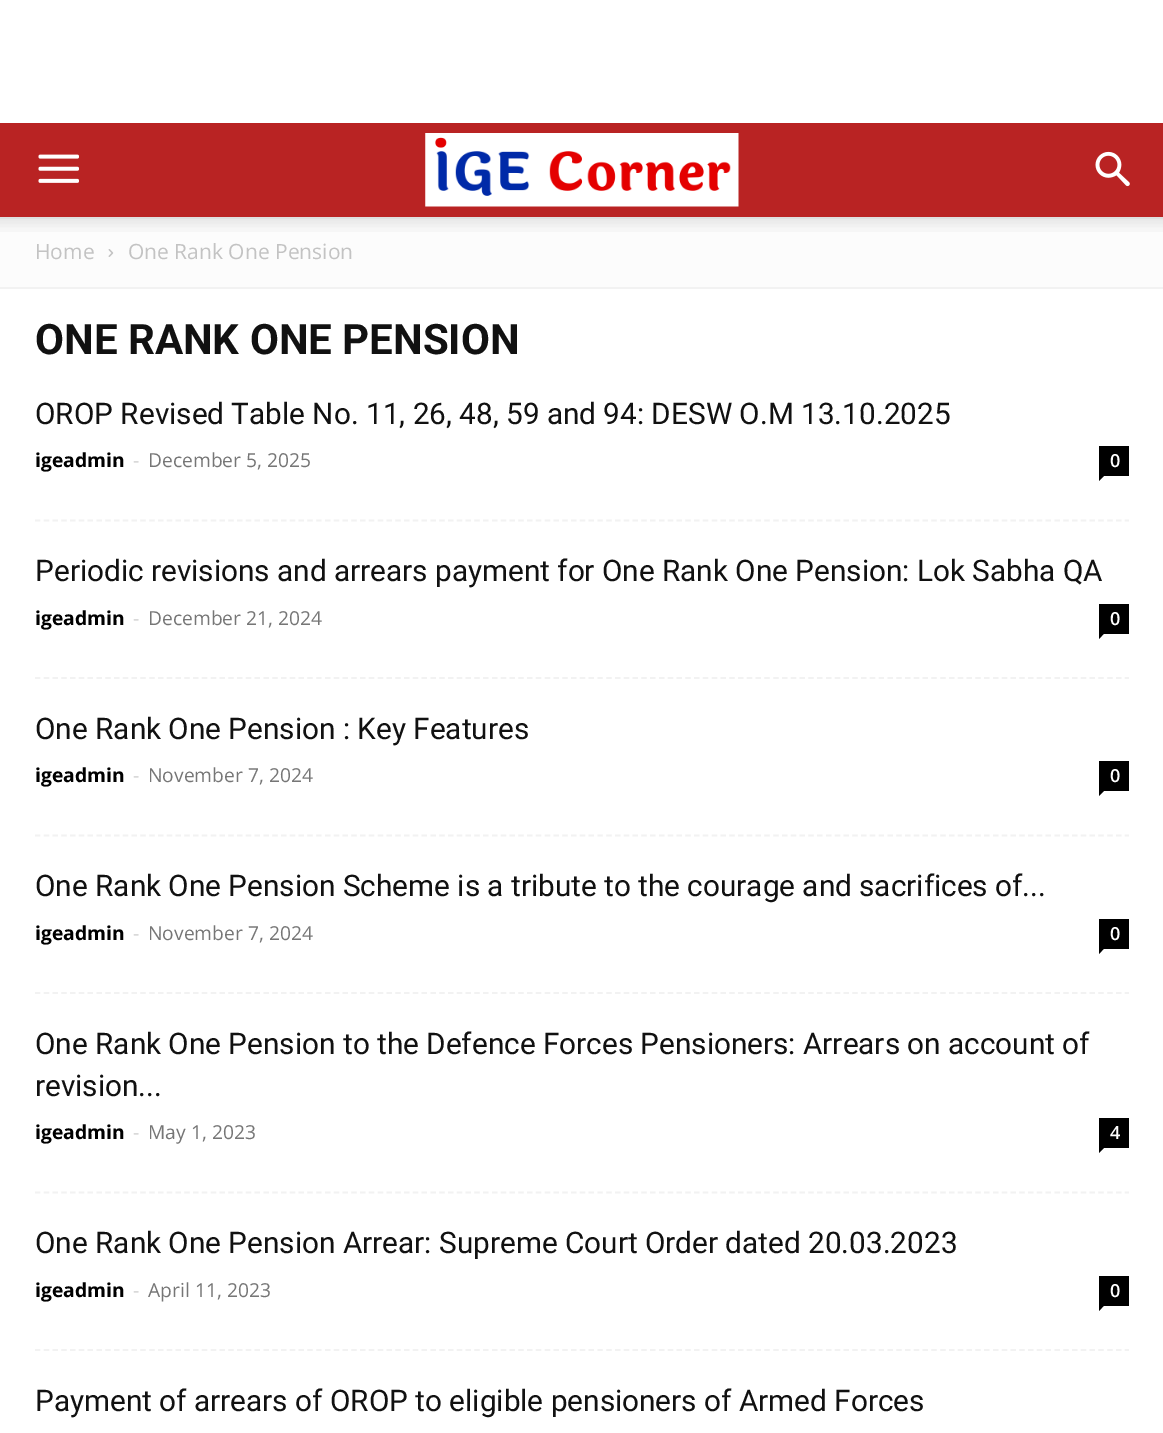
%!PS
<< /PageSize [1163 1433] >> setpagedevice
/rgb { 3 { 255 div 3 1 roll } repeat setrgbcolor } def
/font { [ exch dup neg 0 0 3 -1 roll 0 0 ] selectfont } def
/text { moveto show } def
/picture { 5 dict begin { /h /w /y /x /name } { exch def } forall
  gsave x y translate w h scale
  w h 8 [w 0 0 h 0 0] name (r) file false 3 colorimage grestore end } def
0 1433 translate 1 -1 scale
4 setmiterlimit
255 255 255 rgb
0 0 1163 1433 rectfill
185 35 35 rgb
0 123 1163 94 rectfill
(img_01.rgb) 38 154 41 29 picture
(img_02.rgb) 425 133 314 74 picture
(img_03.rgb) 1095 151 35 36 picture
252 252 252 rgb
0 219 1163 68 rectfill
242 242 242 rgb
0 217 1163 2 rectfill
(img_04.rgb) 0 217 1163 15 picture
0 287 1163 2 rectfill
(img_05.rgb) 108 249 6 8 picture
1.8 setlinewidth
[5.25 3.54] 0 setdash
35 520.5 moveto 1094 0 rlineto stroke
0 0 0 rgb
1099 446 30 30 rectfill
1099 476 moveto 5 0 rlineto -5 5 rlineto closepath fill
242 242 242 rgb
35 678 moveto 1094 0 rlineto stroke
0 0 0 rgb
1099 604 30 30 rectfill
1099 633.5 moveto 5 0 rlineto -5 5.5 rlineto closepath fill
242 242 242 rgb
35 835.5 moveto 1094 0 rlineto stroke
0 0 0 rgb
1099 761 30 30 rectfill
1099 791 moveto 5 0 rlineto -5 5 rlineto closepath fill
242 242 242 rgb
35 993 moveto 1094 0 rlineto stroke
0 0 0 rgb
1099 919 30 30 rectfill
1099 948.5 moveto 5 0 rlineto -5 5.5 rlineto closepath fill
242 242 242 rgb
35 1192.5 moveto 1094 0 rlineto stroke
0 0 0 rgb
1099 1118 30 30 rectfill
1099 1148 moveto 5 0 rlineto -5 5 rlineto closepath fill
242 242 242 rgb
35 1350 moveto 1094 0 rlineto stroke
0 0 0 rgb
1099 1276 30 30 rectfill
1099 1305.5 moveto 5 0 rlineto -5 5.5 rlineto closepath fill
/OpenSans-Regular 21 font
195 195 195 rgb
(Home) 35 259 text
(One Rank One Pension) 128 259 text
/Roboto-Bold 42 font
17 17 17 rgb
(ONE RANK ONE PENSION) 35 354 text
/Roboto-Regular 29.75 font
(OROP Revised Table No. 11, 26, 48, 59 and 94: DESW O.M 13.10.2025) 35 424 text
/OpenSans-Bold 19.25 font
0 0 0 rgb
(igeadmin) 35 467 text
/OpenSans-Regular 19.25 font
204 204 204 rgb
(-) 133 467 text
118 118 118 rgb
(December 5, 2025) 148 467 text
/OpenSans-SemiBold 18 font
255 255 255 rgb
(0) 1110 467 text
/Roboto-Regular 29.75 font
17 17 17 rgb
(Periodic revisions and arrears payment for One Rank One Pension: Lok Sabha QA) 35 581 text
/OpenSans-Bold 19.25 font
0 0 0 rgb
(igeadmin) 35 625 text
/OpenSans-Regular 19.25 font
204 204 204 rgb
(-) 133 625 text
118 118 118 rgb
(December 21, 2024) 148 625 text
/OpenSans-SemiBold 18 font
255 255 255 rgb
(0) 1110 625 text
/Roboto-Regular 29.75 font
17 17 17 rgb
(One Rank One Pension : Key Features) 35 739 text
/OpenSans-Bold 19.25 font
0 0 0 rgb
(igeadmin) 35 782 text
/OpenSans-Regular 19.25 font
204 204 204 rgb
(-) 133 782 text
118 118 118 rgb
(November 7, 2024) 148 782 text
/OpenSans-SemiBold 18 font
255 255 255 rgb
(0) 1110 782 text
/Roboto-Regular 29.75 font
17 17 17 rgb
(One Rank One Pension Scheme is a tribute to the courage and sacrifices of...) 35 896 text
/OpenSans-Bold 19.25 font
0 0 0 rgb
(igeadmin) 35 940 text
/OpenSans-Regular 19.25 font
204 204 204 rgb
(-) 133 940 text
118 118 118 rgb
(November 7, 2024) 148 940 text
/OpenSans-SemiBold 18 font
255 255 255 rgb
(0) 1110 940 text
/Roboto-Regular 29.75 font
17 17 17 rgb
(One Rank One Pension to the Defence Forces Pensioners: Arrears on account of) 35 1054 text
(revision...) 35 1096 text
/OpenSans-Bold 19.25 font
0 0 0 rgb
(igeadmin) 35 1139 text
/OpenSans-Regular 19.25 font
204 204 204 rgb
(-) 133 1139 text
118 118 118 rgb
(May 1, 2023) 148 1139 text
/OpenSans-SemiBold 18 font
255 255 255 rgb
(4) 1110 1139 text
/Roboto-Regular 29.75 font
17 17 17 rgb
(One Rank One Pension Arrear: Supreme Court Order dated 20.03.2023) 35 1253 text
/OpenSans-Bold 19.25 font
0 0 0 rgb
(igeadmin) 35 1297 text
/OpenSans-Regular 19.25 font
204 204 204 rgb
(-) 133 1297 text
118 118 118 rgb
(April 11, 2023) 148 1297 text
/OpenSans-SemiBold 18 font
255 255 255 rgb
(0) 1110 1297 text
/Roboto-Regular 29.75 font
17 17 17 rgb
(Payment of arrears of OROP to eligible pensioners of Armed Forces) 35 1411 text
showpage
